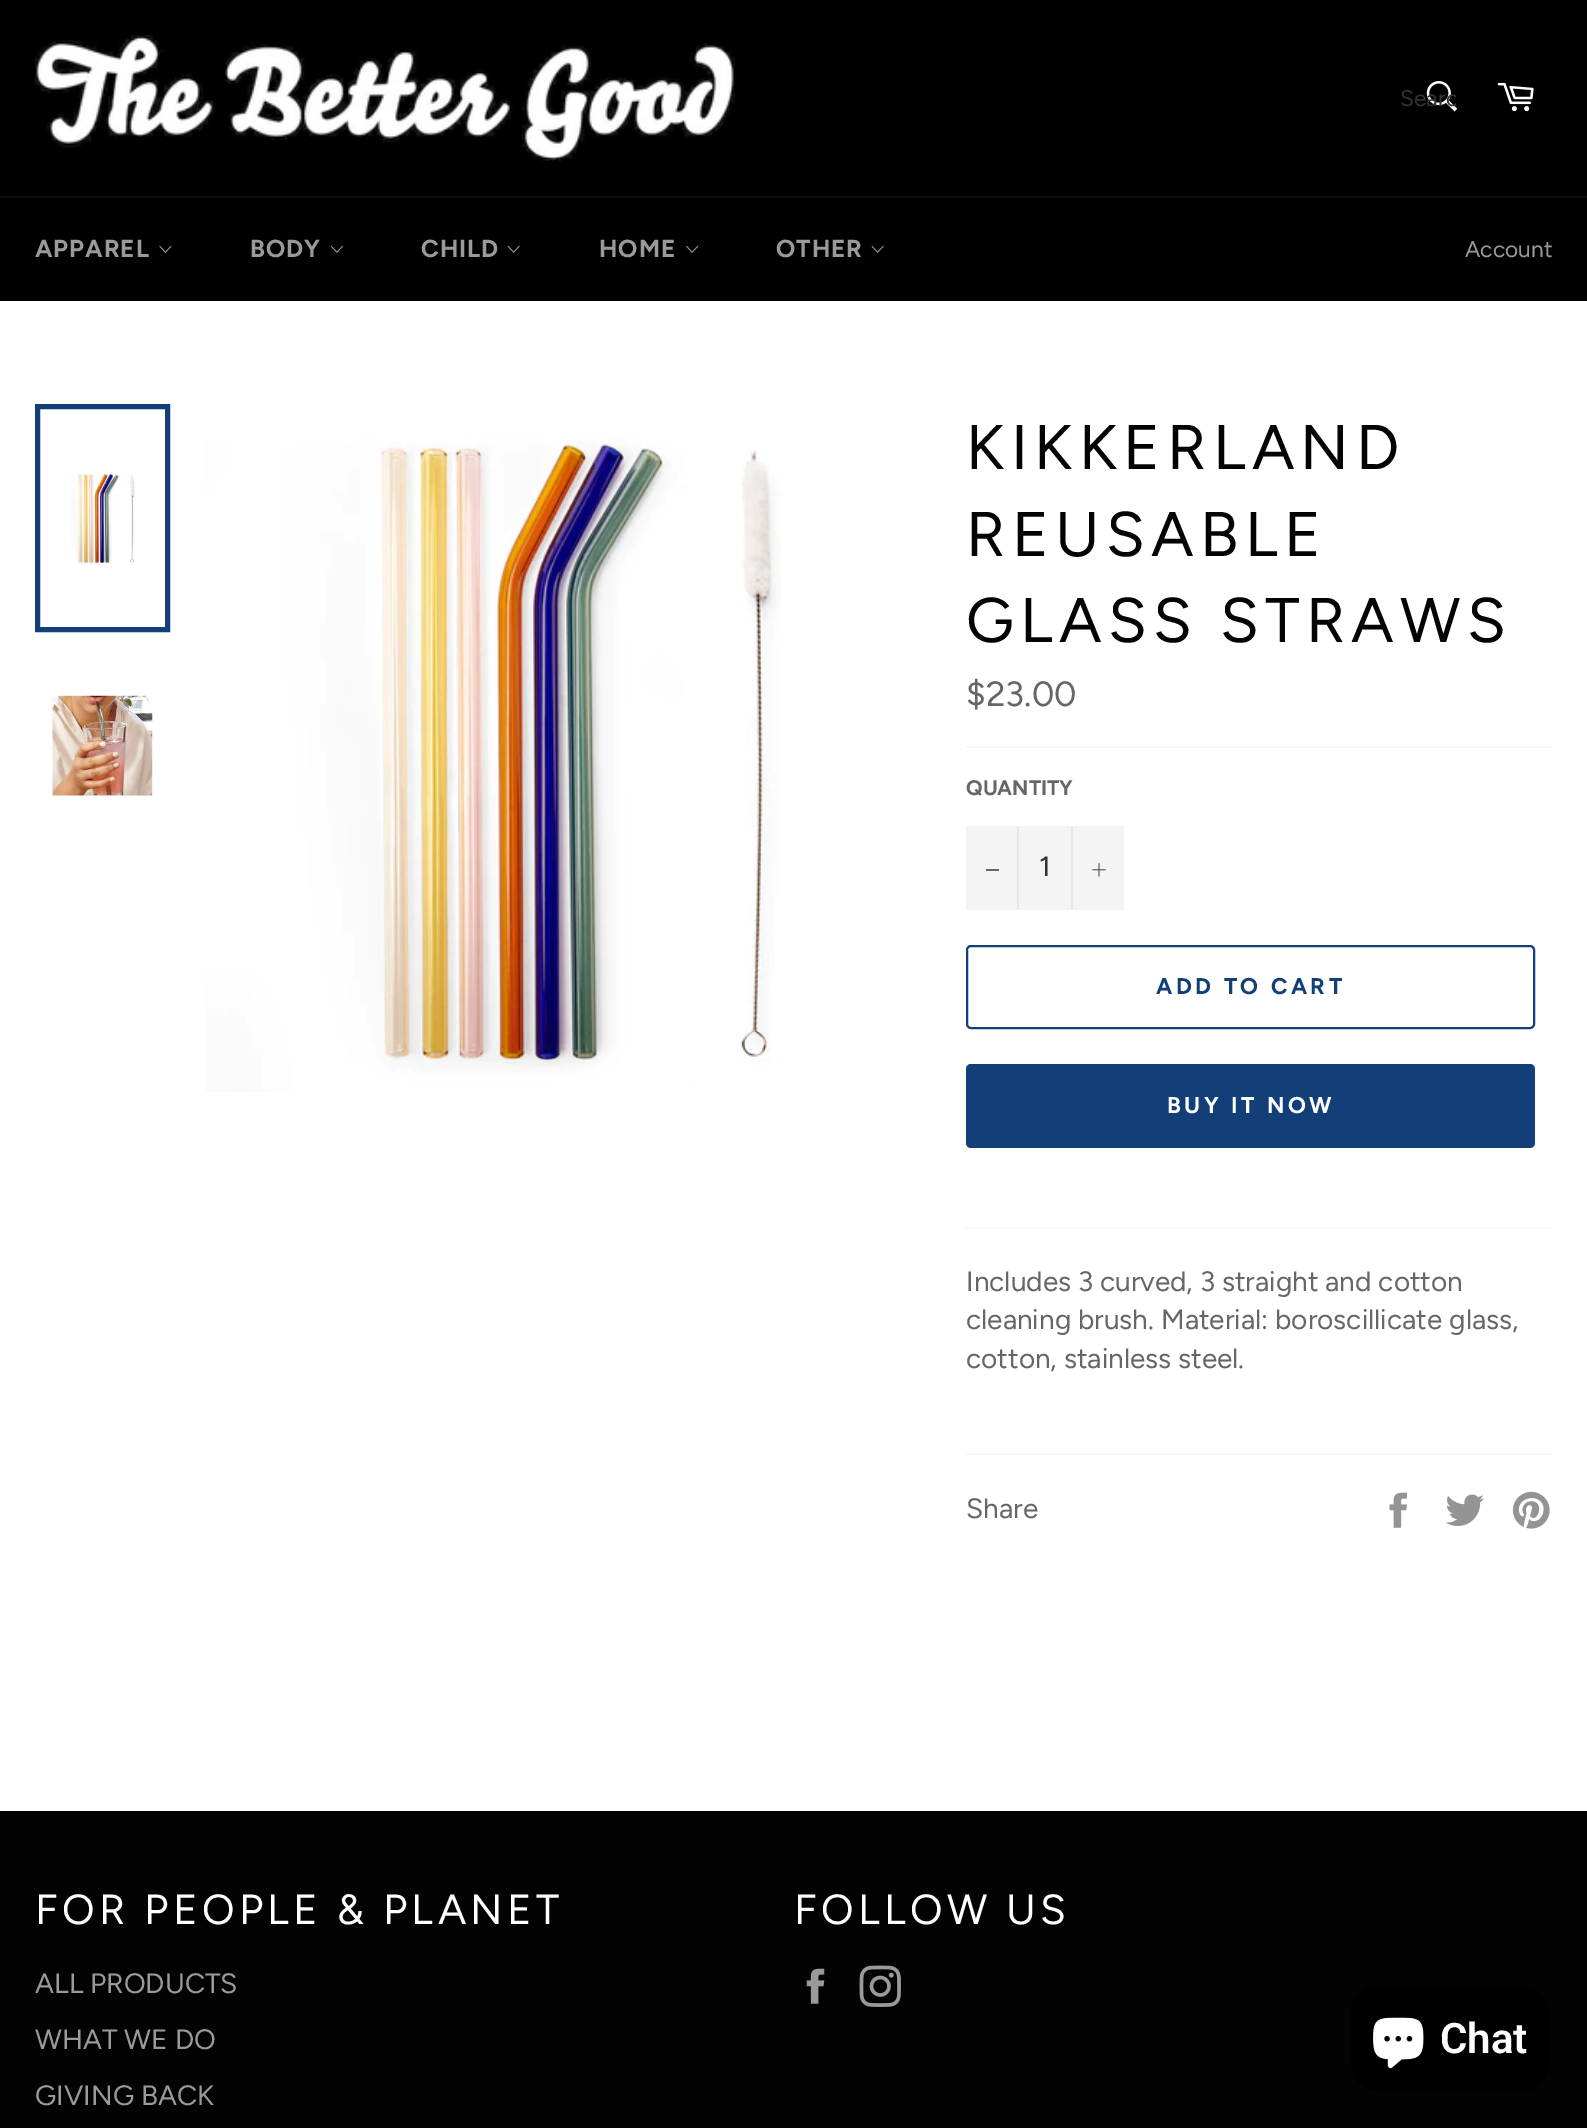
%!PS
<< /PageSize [1587 2128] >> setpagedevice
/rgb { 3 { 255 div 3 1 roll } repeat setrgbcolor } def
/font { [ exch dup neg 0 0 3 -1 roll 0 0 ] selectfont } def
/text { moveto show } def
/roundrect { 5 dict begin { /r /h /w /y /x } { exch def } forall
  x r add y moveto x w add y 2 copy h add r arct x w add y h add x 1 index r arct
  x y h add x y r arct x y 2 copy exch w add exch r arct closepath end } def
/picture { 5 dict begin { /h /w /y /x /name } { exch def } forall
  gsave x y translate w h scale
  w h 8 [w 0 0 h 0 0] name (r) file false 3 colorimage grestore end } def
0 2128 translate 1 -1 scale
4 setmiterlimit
0 0 0 rgb
0 0 1587 2128 rectfill
(img_01.rgb) 35 35 700 126 picture
(img_02.rgb) 1426 81 32 31 picture
(img_03.rgb) 1497 82 37 30 picture
13 13 13 rgb
0 196 1587 2 rectfill
(img_04.rgb) 159 245 13 8 picture
(img_05.rgb) 330 245 13 8 picture
(img_06.rgb) 507 245 13 8 picture
(img_07.rgb) 686 245 13 8 picture
(img_06.rgb) 871 245 13 8 picture
255 255 255 rgb
0 301 1587 1510 rectfill
(img_08.rgb) 70 473 66 92 picture
19 63 121 rgb
5 setlinewidth
37.5 406.5 130 223 rectstroke
(img_09.rgb) 52 695 101 101 picture
(img_10.rgb) 205 439 576 653 picture
247 247 247 rgb
966 746 586 2 rectfill
244 244 244 rgb
966 826 158 84 rectfill
231 231 231 rgb
1017 826 2 84 rectfill
102 102 102 rgb
986 869 13 2 rectfill
231 231 231 rgb
1071 826 2 84 rectfill
(img_11.rgb) 1092 863 14 14 picture
19 63 121 rgb
2 setlinewidth
967 946 567 82 4 roundrect stroke
966 1064 569 84 5 roundrect fill
247 247 247 rgb
966 1227 586 2 rectfill
966 1453 586 2 rectfill
(img_12.rgb) 1389 1492 18 36 picture
(img_13.rgb) 1445 1494 39 32 picture
(img_14.rgb) 1512 1491 38 38 picture
3 3 3 rgb
0 1811 1587 317 rectfill
(img_15.rgb) 806 1968 19 36 picture
(img_16.rgb) 859 1965 42 42 picture
0 0 0 rgb
1351 1986 198 105 28 roundrect fill
(img_17.rgb) 1373 2017 51 52 picture
gsave
1400 86 56 26 rectclip
/Figtree-Regular 22.75 font
51 51 51 rgb
(Searc) 1400 106 text
grestore
/Figtree-Bold 24.5 font
154 154 154 rgb
35 257 moveto 1 0 (APPAREL) ashow
250 257 moveto 1 0 (BODY) ashow
421 257 moveto 1 0 (CHILD) ashow
599 257 moveto 1 0 (HOME) ashow
776 257 moveto 1 0 (OTHER) ashow
/Figtree-Regular 22.75 font
(Account) 1465 257 text
/Figtree-Regular 63 font
3 3 3 rgb
966 469 moveto 6.25 0 (KIKKERLAND) ashow
966 556 moveto 6.25 0 (REUSABLE) ashow
966 642 moveto 6.25 0 (GLASS STRAWS) ashow
/Figtree-Regular 35 font
102 102 102 rgb
($23.00) 966 706 text
/Figtree-Bold 21 font
(QUANTITY) 966 795 text
/Figtree-Regular 28 font
51 51 51 rgb
(1) 1039 876 text
/Figtree-Bold 22.75 font
19 63 121 rgb
1156 994 moveto 3.5 0 (ADD TO CART) ashow
255 255 255 rgb
1167 1113 moveto 3.5 0 (BUY IT NOW) ashow
/Figtree-Regular 28 font
102 102 102 rgb
(Includes 3 curved, 3 straight and cotton) 966 1291 text
(cleaning brush. Material: boroscillicate glass,) 966 1329 text
(cotton, stainless steel.) 966 1368 text
(Share) 966 1518 text
/Figtree-Regular 42 font
255 255 255 rgb
35 1924 moveto 4.25 0 (FOR PEOPLE & PLANET) ashow
/Figtree-Regular 28 font
154 154 154 rgb
(ALL PRODUCTS) 35 1993 text
(WHAT WE DO) 35 2049 text
(GIVING BACK) 35 2105 text
/Figtree-Regular 42 font
255 255 255 rgb
794 1924 moveto 4.25 0 (FOLLOW US) ashow
/Roboto-SemiBold 42 font
(Chat) 1440 2053 text
showpage
